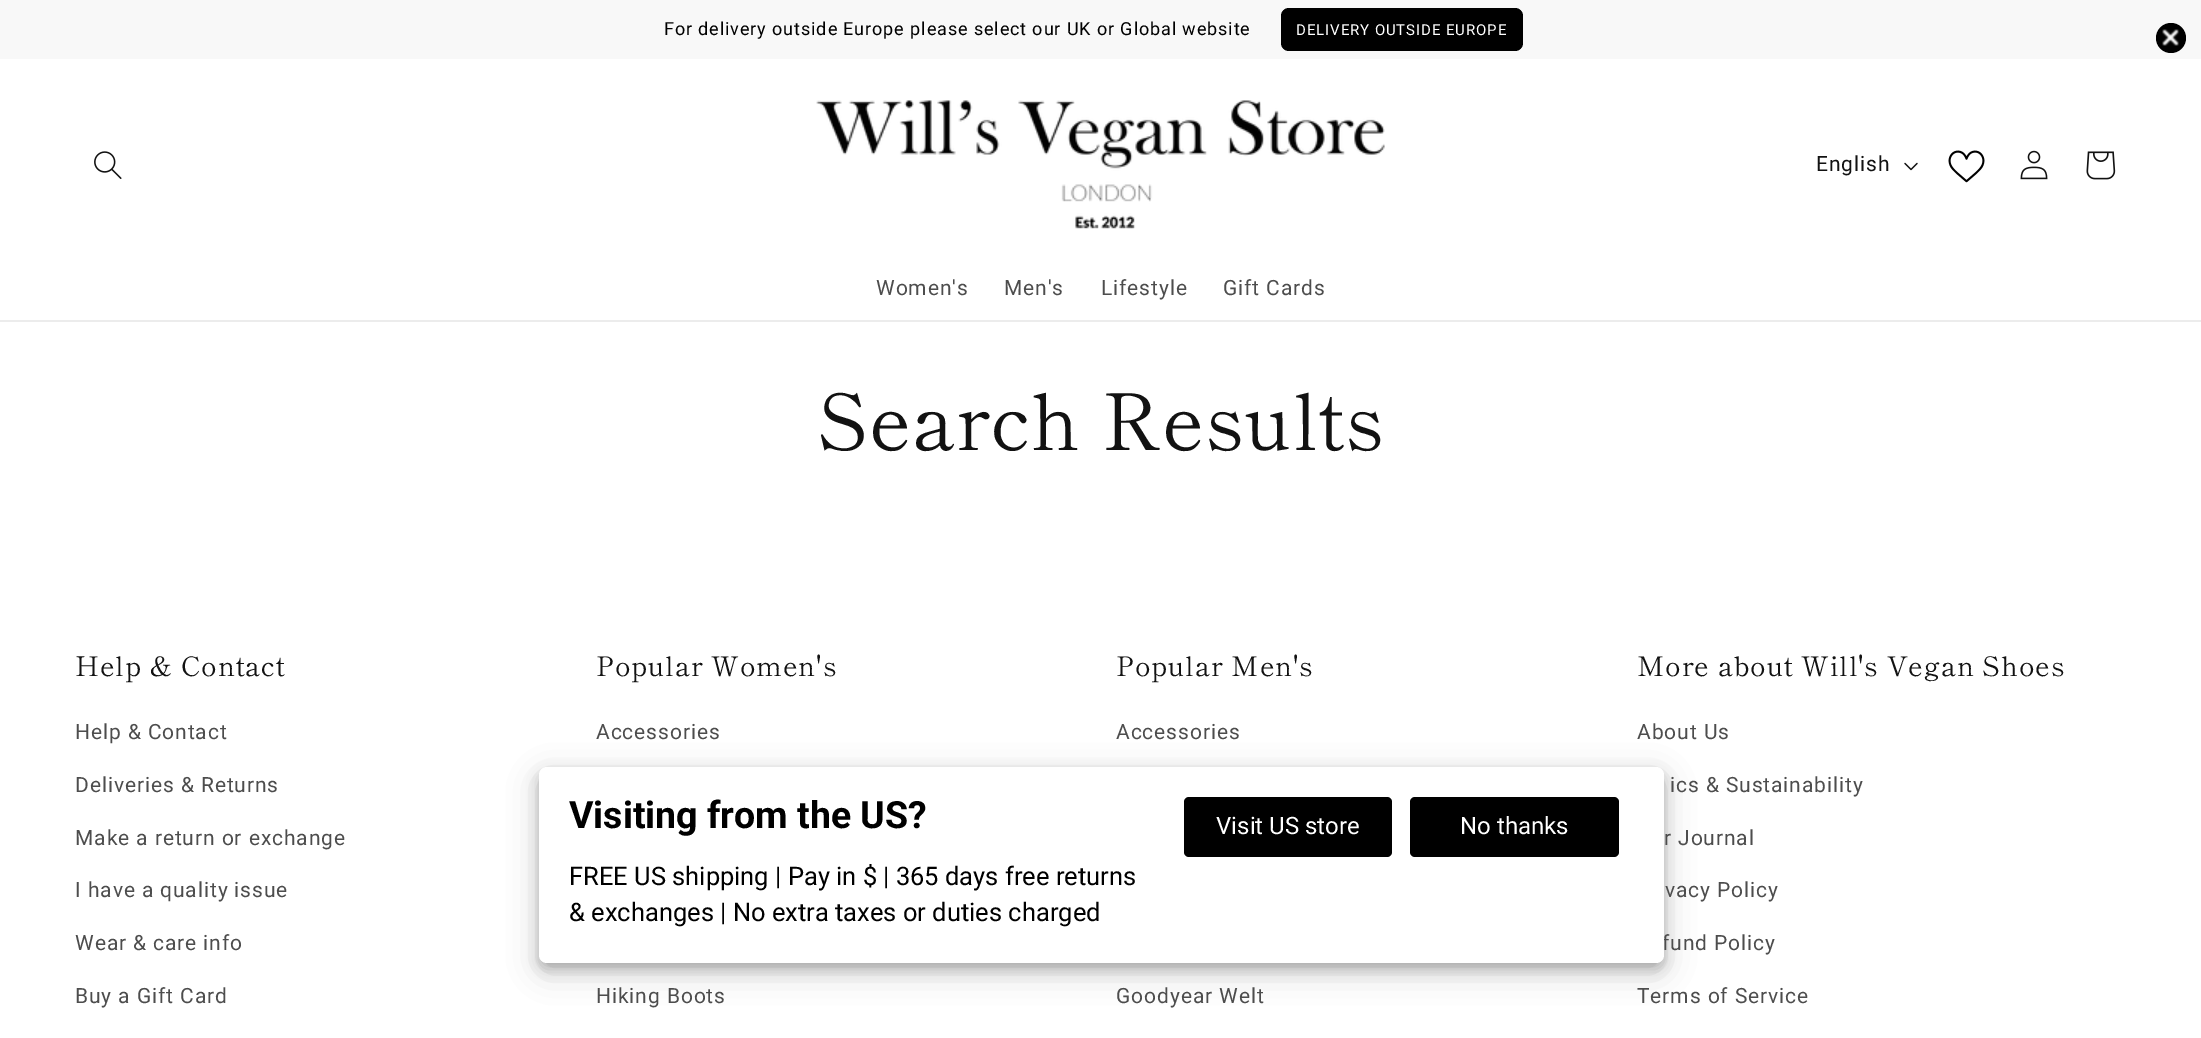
%!PS
<< /PageSize [2201 1038] /PageUsesTransparency true >> setpagedevice
/rgb { 3 { 255 div 3 1 roll } repeat setrgbcolor } def
/font { [ exch dup neg 0 0 3 -1 roll 0 0 ] selectfont } def
/text { moveto show } def
/alpha { dup .setfillconstantalpha .setstrokeconstantalpha } def
/circle { newpath 0 360 arc closepath } def
/roundrect { 5 dict begin { /r /h /w /y /x } { exch def } forall
  x r add y moveto x w add y 2 copy h add r arct x w add y h add x 1 index r arct
  x y h add x y r arct x y 2 copy exch w add exch r arct closepath end } def
/shadow { 12 dict begin { /a /b /q /h /w /y /x } { exch def } forall gsave /was 0 def
  9 -2 -9 { dup b mul 4 div /e exch def 1 sub .425 mul 2.718 exch exp 1 add a .99 .min exch div /now exch def
    1 1 now sub 1 was sub div sub alpha /was now def
    w h .min e 2 mul add 0 gt { x e sub y e sub w e 2 mul add h e 2 mul add
      q e add b .6 mul add w h .min 2 div e add .min 0 .max roundrect fill } if } for grestore end } def
/picture { 5 dict begin { /h /w /y /x /name } { exch def } forall
  gsave x y translate w h scale
  w h 8 [w 0 0 h 0 0] name (r) file false 3 colorimage grestore end } def
0 .pushpdf14devicefilter
0 1038 translate 1 -1 scale
4 setmiterlimit
255 255 255 rgb
0 0 2201 1038 rectfill
248 248 248 rgb
0 0 2201 59 rectfill
0 0 0 rgb
1281 8 242 43 8 roundrect fill
2171 38 15 circle fill
(img_01.rgb) 2162 29 17 17 picture
236 236 236 rgb
0 320 2201 2 rectfill
(img_02.rgb) 94 151 28 28 picture
(img_03.rgb) 816 100 569 129 picture
(img_04.rgb) 1904 162 14 9 picture
(img_05.rgb) 1948 150 37 33 picture
(img_06.rgb) 2020 150 28 30 picture
(img_07.rgb) 2086 151 30 29 picture
0 0 0 rgb
539 776 1125 196 8 15 0.19 shadow
539 773 1125 196 8 6 0.2 shadow
/Roboto-Regular 18 font
664 35 moveto 0.9 0 (For delivery outside Europe please select our UK or Global website) ashow
/Roboto-Regular 15 font
255 255 255 rgb
1296 35 moveto 0.9 0 (DELIVERY OUTSIDE EUROPE) ashow
/Roboto-Regular 21 font
18 18 18 rgb
1816 171 moveto 0.9 0 (English) ashow
77 77 77 rgb
876 295 moveto 0.9 0 (Women's) ashow
1004 295 moveto 0.9 0 (Men's) ashow
1101 295 moveto 0.9 0 (Lifestyle) ashow
1223 295 moveto 0.9 0 (Gift Cards) ashow
/ShipporiMincho-Regular 78 font
18 18 18 rgb
817 450 moveto 0.9 0 (Search Results) ashow
/ShipporiMincho-Regular 27 font
75 676 moveto 0.9 0 (Help & Contact) ashow
/Roboto-Regular 21 font
77 77 77 rgb
75 739 moveto 0.9 0 (Help & Contact) ashow
75 792 moveto 0.9 0 (Deliveries & Returns) ashow
75 845 moveto 0.9 0 (Make a return or exchange) ashow
75 897 moveto 0.9 0 (I have a quality issue) ashow
75 950 moveto 0.9 0 (Wear & care info) ashow
75 1003 moveto 0.9 0 (Buy a Gift Card) ashow
/ShipporiMincho-Regular 27 font
18 18 18 rgb
596 676 moveto 0.9 0 (Popular Women's) ashow
/Roboto-Regular 21 font
77 77 77 rgb
596 739 moveto 0.9 0 (Accessories) ashow
596 1003 moveto 0.9 0 (Hiking Boots) ashow
/ShipporiMincho-Regular 27 font
18 18 18 rgb
1116 676 moveto 0.9 0 (Popular Men's) ashow
/Roboto-Regular 21 font
77 77 77 rgb
1116 739 moveto 0.9 0 (Accessories) ashow
1116 1003 moveto 0.9 0 (Goodyear Welt) ashow
/ShipporiMincho-Regular 27 font
18 18 18 rgb
1637 676 moveto 0.9 0 (More about Will's Vegan Shoes) ashow
/Roboto-Regular 21 font
77 77 77 rgb
1637 739 moveto 0.9 0 (About Us) ashow
1670 792 moveto 0.9 0 (ics & Sustainability) ashow
1664 845 moveto 0.9 0 (r Journal) ashow
1665 897 moveto 0.9 0 (vacy Policy) ashow
1662 950 moveto 0.9 0 (fund Policy) ashow
1637 1003 moveto 0.9 0 (Terms of Service) ashow
255 255 255 rgb
539 767 1125 196 8 roundrect fill
/Roboto-Bold 37.5 font
0 0 0 rgb
(Visiting from the US?) 569 828 text
/Roboto-Regular 25.5 font
(FREE US shipping | Pay in $ | 365 days free returns) 569 885 text
(& exchanges | No extra taxes or duties charged) 569 921 text
1184 797 208 60 5 roundrect fill
/Roboto-Regular 24 font
255 255 255 rgb
(Visit US store) 1216 834 text
0 0 0 rgb
1410 797 209 60 5 roundrect fill
255 255 255 rgb
(No thanks) 1460 834 text
.poppdf14devicefilter showpage
